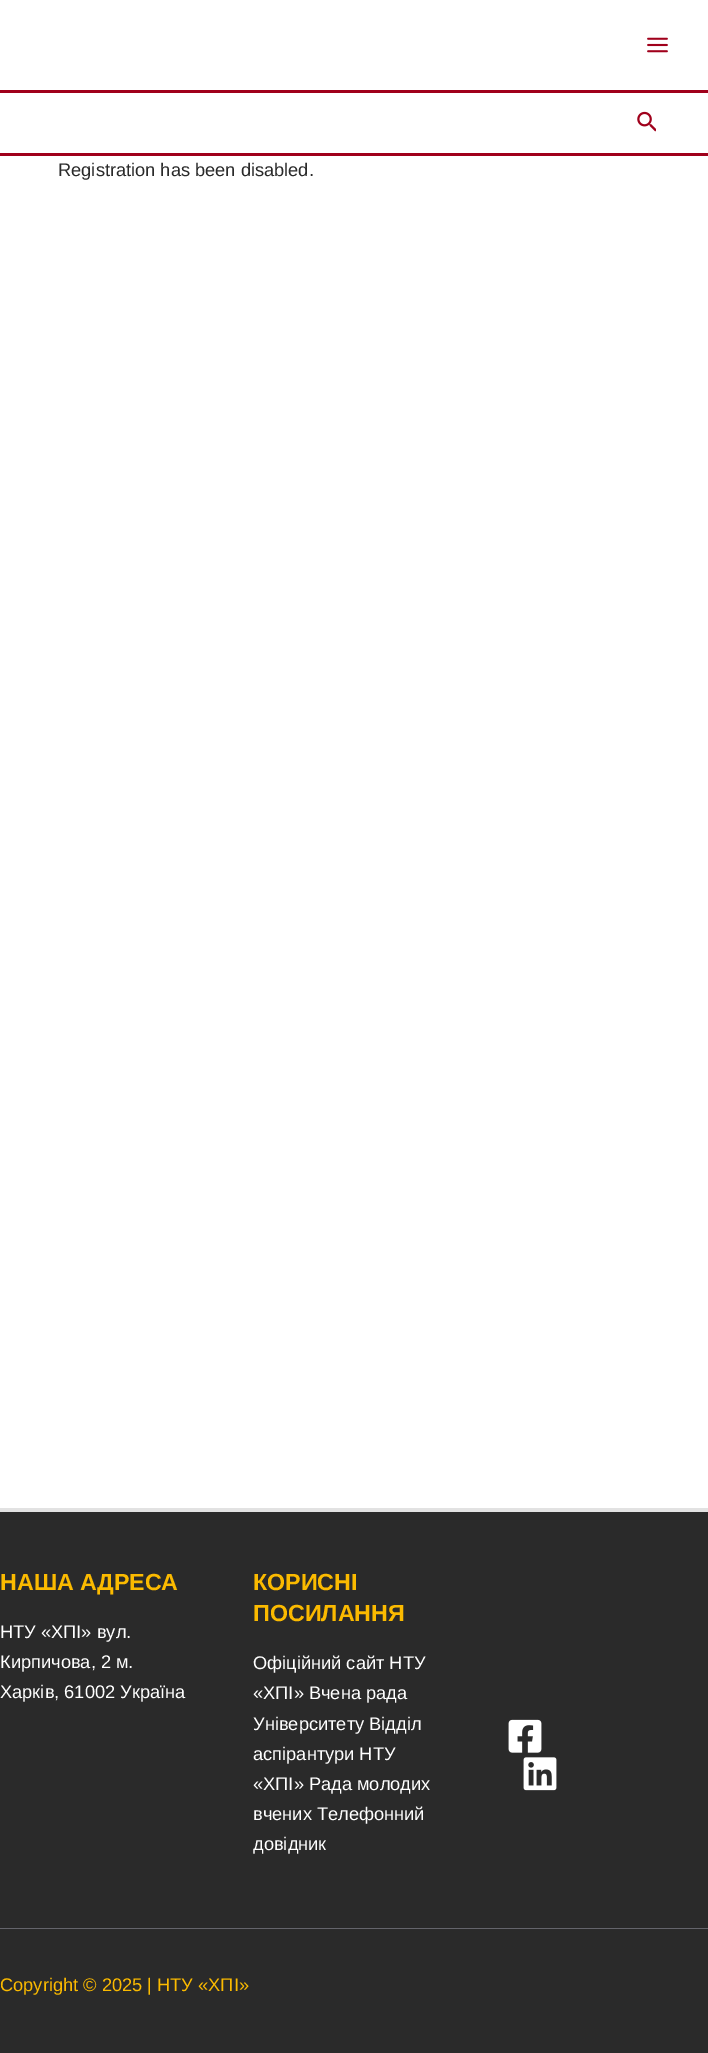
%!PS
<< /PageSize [708 2053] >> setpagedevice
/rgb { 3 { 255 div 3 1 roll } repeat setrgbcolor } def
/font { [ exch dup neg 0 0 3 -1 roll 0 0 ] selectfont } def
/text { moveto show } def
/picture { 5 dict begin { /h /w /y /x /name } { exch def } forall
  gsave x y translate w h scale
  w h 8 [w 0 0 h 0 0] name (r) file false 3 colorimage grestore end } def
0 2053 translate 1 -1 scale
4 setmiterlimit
255 255 255 rgb
0 0 708 2053 rectfill
160 0 27 rgb
0 90 708 3 rectfill
(img_01.rgb) 647 37 21 16 picture
0 153 708 3 rectfill
(img_02.rgb) 637 111 19 21 picture
42 42 42 rgb
0 1512 708 416 rectfill
226 226 226 rgb
0 1508 708 4 rectfill
(img_03.rgb) 508 1719 34 34 picture
(img_04.rgb) 523 1757 34 34 picture
42 42 42 rgb
0 1929 708 124 rectfill
100 100 107 rgb
0 1928 708 1 rectfill
/LiberationSans-Regular 18.25 font
42 42 42 rgb
(Registration has been disabled.) 58 176 text
/LiberationSans-Bold 23.25 font
251 186 0 rgb
(НАША АДРЕСА) 0 1590 text
/LiberationSans-Regular 18.25 font
255 255 255 rgb
(НТУ «ХПІ» вул.) 0 1638 text
(Кирпичова, 2 м.) 0 1668 text
(Харків, 61002 Україна) 0 1698 text
/LiberationSans-Bold 23.25 font
251 186 0 rgb
(КОРИСНІ) 253 1590 text
(ПОСИЛАННЯ) 253 1621 text
/LiberationSans-Regular 18.25 font
255 255 255 rgb
(Офіційний сайт НТУ) 253 1669 text
(«ХПІ» Вчена рада) 253 1699 text
(Університету Відділ) 253 1730 text
(аспірантури НТУ) 253 1760 text
(«ХПІ» Рада молодих) 253 1790 text
(вчених Телефонний) 253 1820 text
(довідник) 253 1850 text
251 186 0 rgb
(Copyright © 2025 | НТУ «ХПІ») 0 1991 text
showpage
